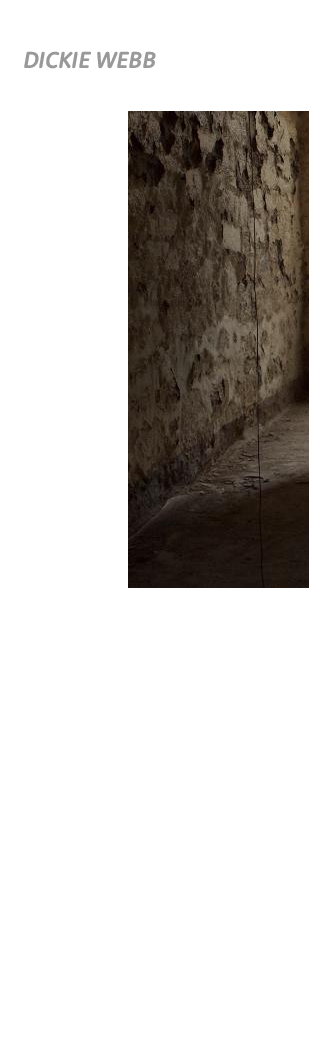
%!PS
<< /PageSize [309 1038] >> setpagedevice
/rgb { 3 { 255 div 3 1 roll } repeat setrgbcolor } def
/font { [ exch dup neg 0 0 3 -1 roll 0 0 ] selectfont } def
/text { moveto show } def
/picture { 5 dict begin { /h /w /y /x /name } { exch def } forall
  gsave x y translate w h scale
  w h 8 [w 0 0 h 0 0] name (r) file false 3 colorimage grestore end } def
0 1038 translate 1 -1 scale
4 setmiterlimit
255 255 255 rgb
0 0 309 1038 rectfill
(img_01.rgb) 128 111 181 477 picture
/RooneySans-BoldItalic 23 font
153 153 153 rgb
(DICKIE WEBB) 23 68 text
showpage
